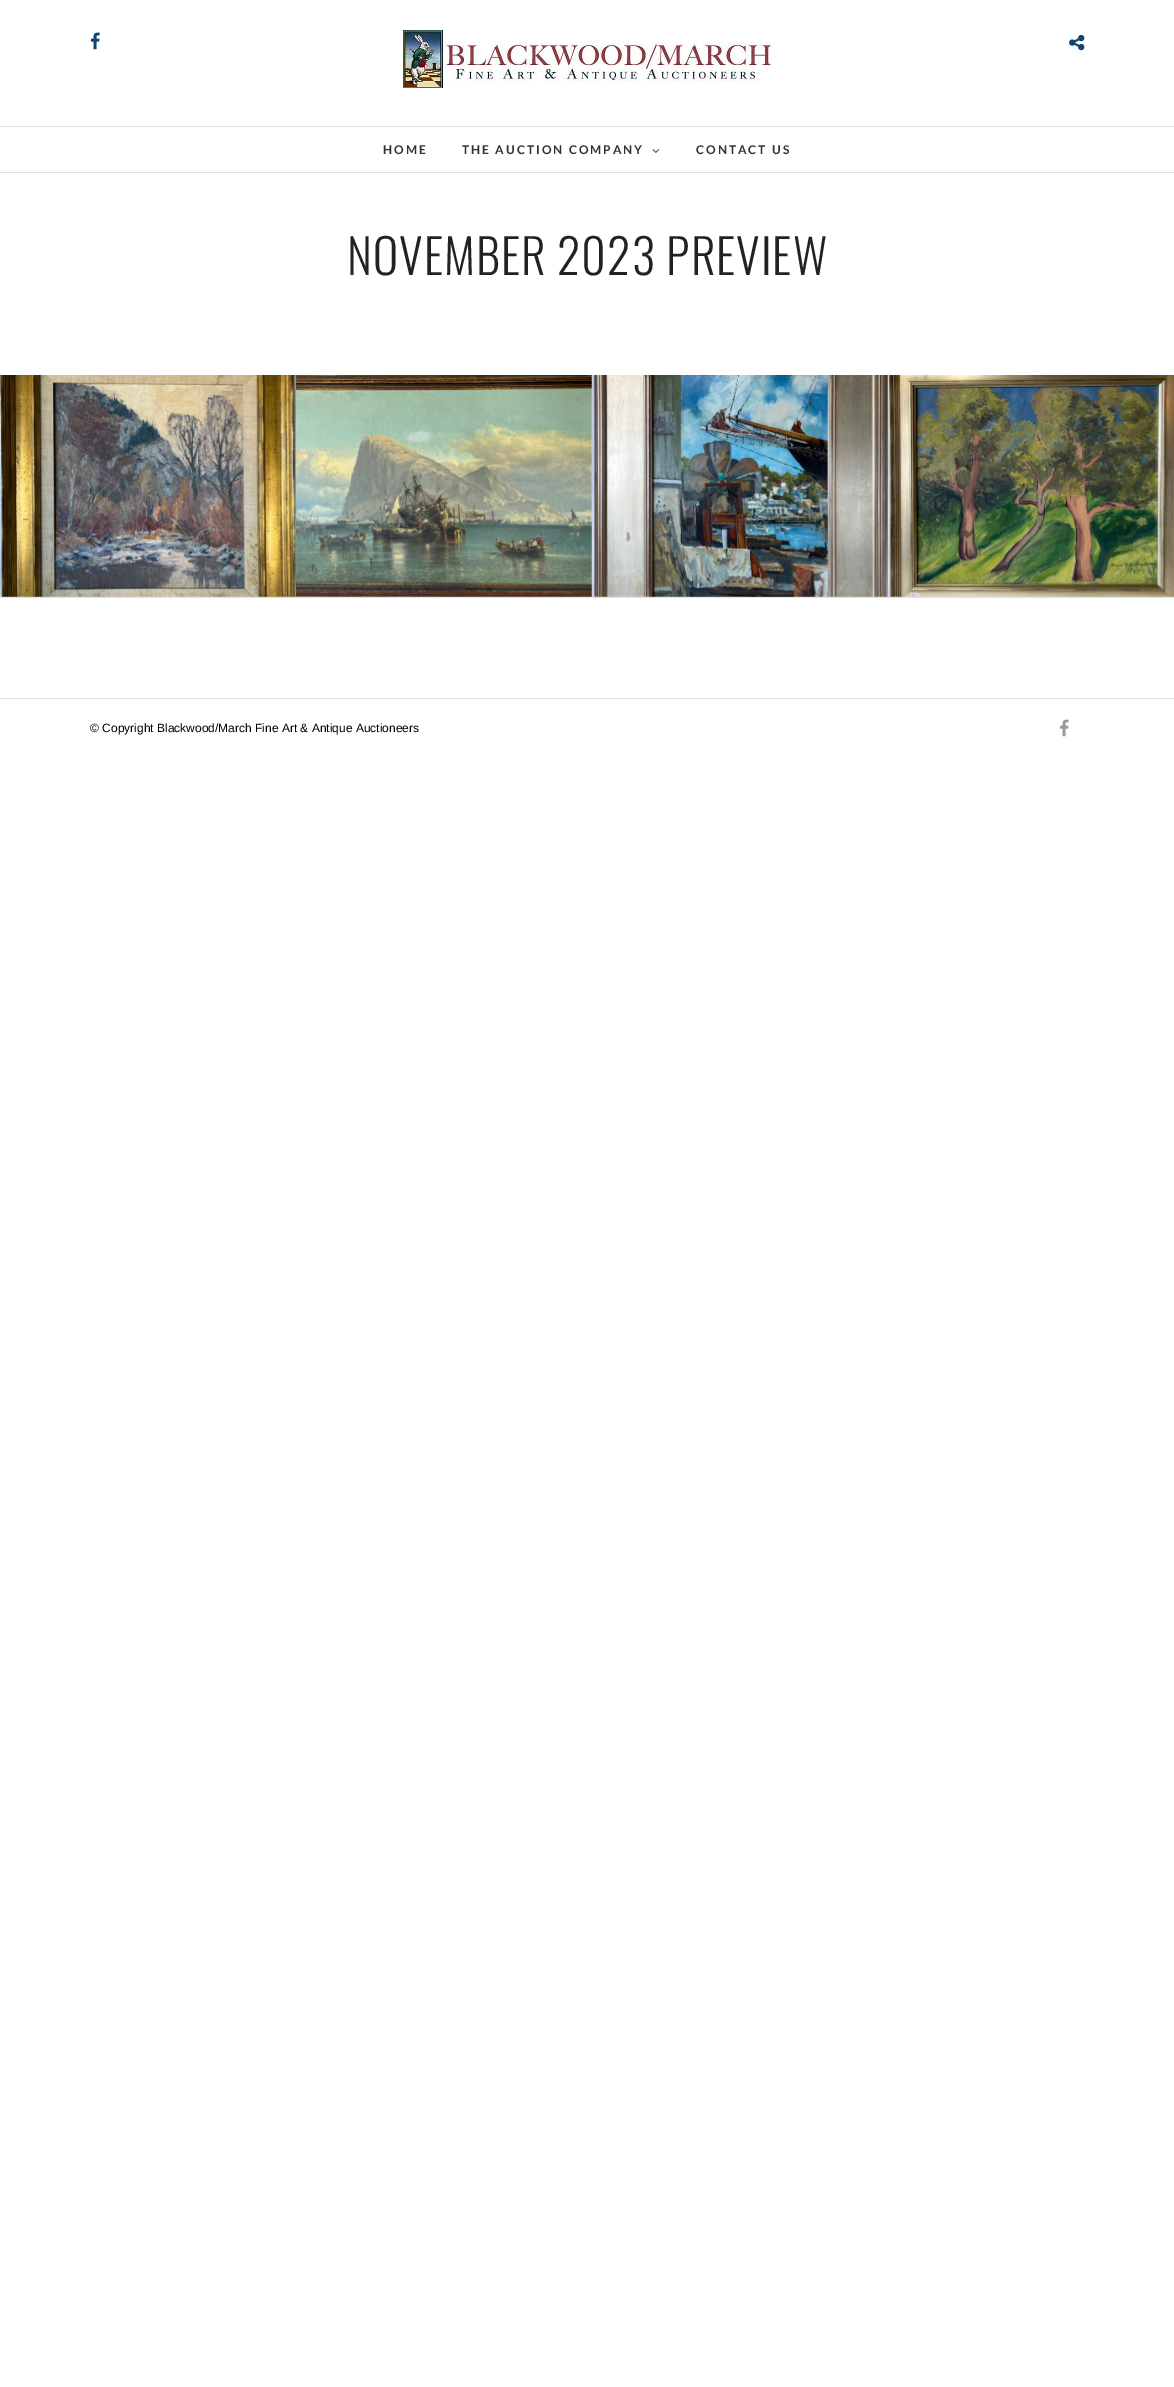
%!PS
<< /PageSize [1174 2387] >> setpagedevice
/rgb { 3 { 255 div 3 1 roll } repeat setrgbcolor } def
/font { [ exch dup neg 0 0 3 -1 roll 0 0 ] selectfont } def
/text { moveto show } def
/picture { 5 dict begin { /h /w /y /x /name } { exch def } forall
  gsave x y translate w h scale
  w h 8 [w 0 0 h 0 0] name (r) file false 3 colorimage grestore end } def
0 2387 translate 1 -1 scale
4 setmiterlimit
255 255 255 rgb
0 0 1174 2387 rectfill
225 223 223 rgb
0 172 1174 1 rectfill
225 225 225 rgb
0 126 1174 1 rectfill
(img_01.rgb) 90 32 10 18 picture
(img_02.rgb) 403 30 368 58 picture
(img_03.rgb) 1069 34 16 17 picture
(img_04.rgb) 652 149 8 4 picture
(img_05.rgb) 0 375 296 222 picture
(img_06.rgb) 296 375 296 222 picture
(img_07.rgb) 592 375 296 222 picture
(img_08.rgb) 888 375 286 222 picture
0 597 1174 1 rectfill
0 698 1174 1 rectfill
(img_09.rgb) 1060 719 9 18 picture
/Lato-Bold 12 font
53 48 48 rgb
383 154 moveto 2 0 (HOME) ashow
462 154 moveto 2 0 (THE AUCTION COMPANY) ashow
696 154 moveto 2 0 (CONTACT US) ashow
/Oswald-Light 48 font
34 34 34 rgb
347 275 moveto 1 0 (NOVEMBER 2023 PREVIEW) ashow
/LiberationSans-Regular 12 font
0 0 0 rgb
(© Copyright Blackwood/March Fine Art & Antique Auctioneers) 90 732 text
showpage
